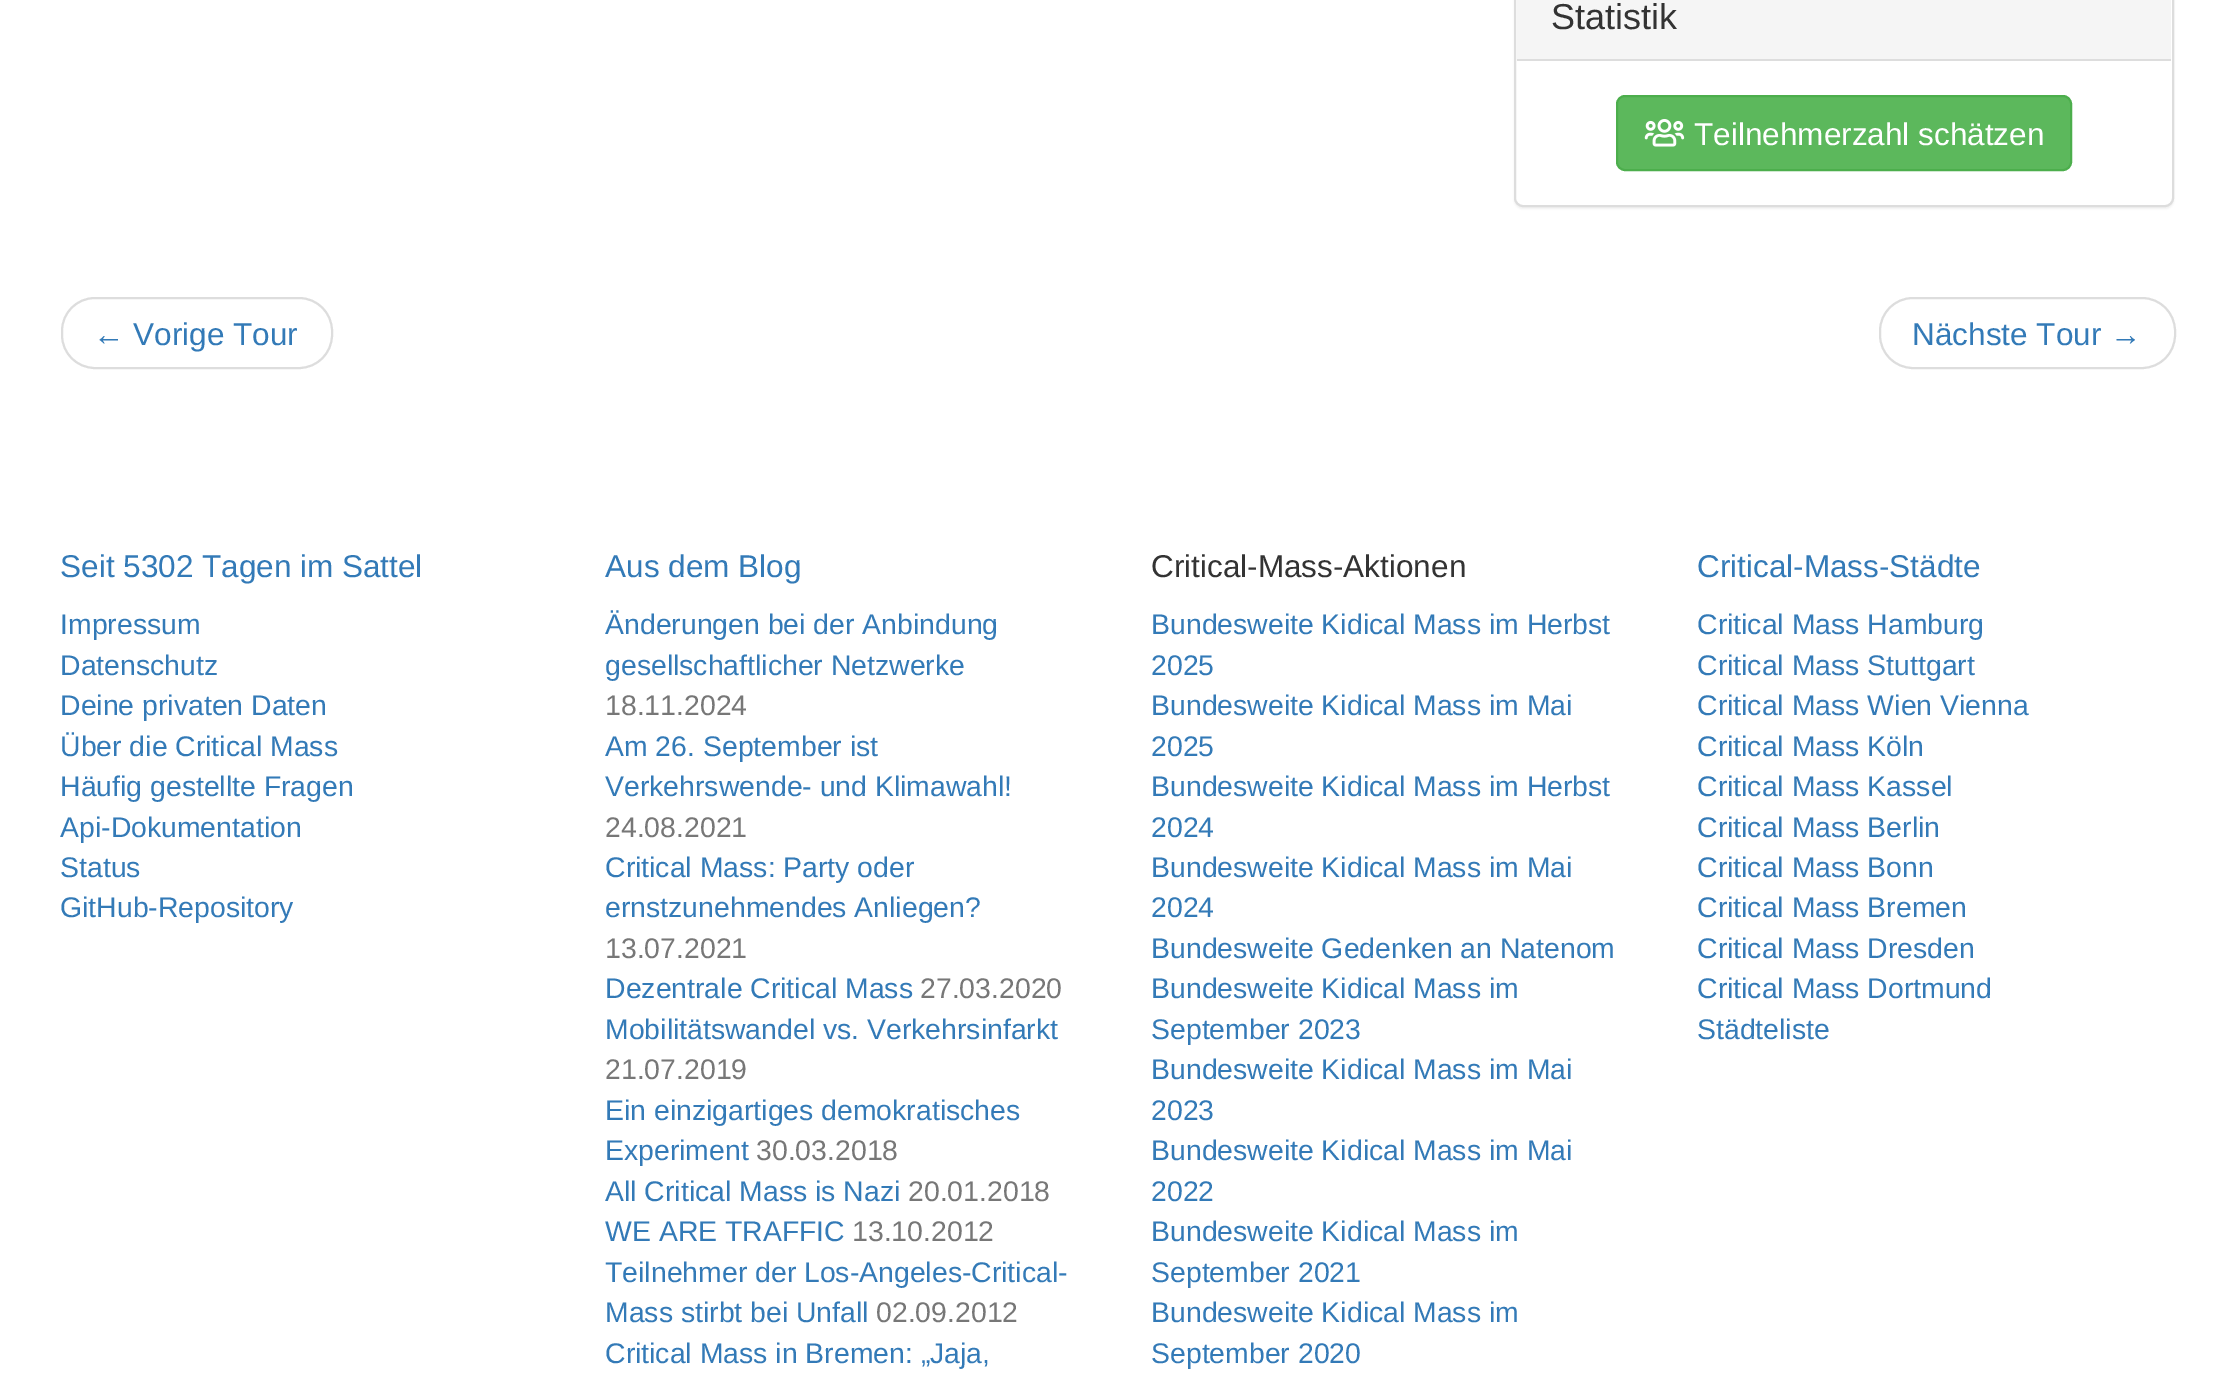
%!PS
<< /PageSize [2233 1386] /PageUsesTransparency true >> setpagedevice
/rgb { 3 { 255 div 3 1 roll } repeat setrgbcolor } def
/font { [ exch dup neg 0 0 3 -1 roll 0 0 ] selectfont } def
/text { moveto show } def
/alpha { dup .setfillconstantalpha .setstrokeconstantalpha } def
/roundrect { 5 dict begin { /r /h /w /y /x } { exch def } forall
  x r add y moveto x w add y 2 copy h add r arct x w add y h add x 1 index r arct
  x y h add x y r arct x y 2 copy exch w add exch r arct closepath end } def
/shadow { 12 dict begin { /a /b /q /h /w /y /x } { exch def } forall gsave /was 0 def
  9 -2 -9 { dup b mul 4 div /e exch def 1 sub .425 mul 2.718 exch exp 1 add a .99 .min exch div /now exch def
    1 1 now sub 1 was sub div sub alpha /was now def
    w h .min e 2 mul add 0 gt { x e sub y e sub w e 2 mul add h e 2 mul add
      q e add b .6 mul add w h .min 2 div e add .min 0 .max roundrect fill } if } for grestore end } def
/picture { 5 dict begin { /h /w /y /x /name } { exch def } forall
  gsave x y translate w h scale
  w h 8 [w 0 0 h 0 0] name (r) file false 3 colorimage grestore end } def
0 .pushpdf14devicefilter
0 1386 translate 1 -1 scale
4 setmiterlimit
255 255 255 rgb
0 0 2233 1386 rectfill
0 0 0 rgb
1514 -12 660 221 9 1 0.05 shadow
255 255 255 rgb
1515 -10 658 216 8 roundrect gsave fill grestore
221 221 221 rgb
2 setlinewidth
stroke
245 245 245 rgb
1517 0 654 59 rectfill
221 221 221 rgb
1517 59 654 2 rectfill
92 184 92 rgb
1617 96 454 74 8 roundrect gsave fill grestore
76 174 76 rgb
stroke
(img_01.rgb) 1644 119 41 28 picture
221 221 221 rgb
62 298 270 70 33 roundrect stroke
1880 298 295 70 33 roundrect stroke
/LiberationSans-Regular 36 font
51 51 51 rgb
(Statistik) 1551 29 text
/LiberationSans-Regular 31.5 font
255 255 255 rgb
(Teilnehmerzahl schätzen) 1694 145 text
51 122 183 rgb
(← Vorige Tour) 93 345 text
(Nächste Tour →) 1912 345 text
(Seit 5302 Tagen im Sattel) 60 577 text
/LiberationSans-Regular 28.4 font
(Impressum) 60 634 text
(Datenschutz) 60 675 text
(Deine privaten Daten) 60 715 text
(Über die Critical Mass) 60 756 text
(Häufig gestellte Fragen) 60 796 text
(Api-Dokumentation) 60 837 text
(Status) 60 877 text
(GitHub-Repository) 60 917 text
/LiberationSans-Regular 31.5 font
(Aus dem Blog) 605 577 text
/LiberationSans-Regular 28.4 font
(Änderungen bei der Anbindung) 605 634 text
(gesellschaftlicher Netzwerke) 605 675 text
119 119 119 rgb
(18.11.2024) 605 715 text
51 122 183 rgb
(Am 26. September ist) 605 756 text
(Verkehrswende- und Klimawahl!) 605 796 text
119 119 119 rgb
(24.08.2021) 605 837 text
51 122 183 rgb
(Critical Mass: Party oder) 605 877 text
(ernstzunehmendes Anliegen?) 605 917 text
119 119 119 rgb
(13.07.2021) 605 958 text
51 122 183 rgb
(Dezentrale Critical Mass) 605 998 text
119 119 119 rgb
(27.03.2020) 920 998 text
51 122 183 rgb
(Mobilitätswandel vs. Verkehrsinfarkt) 605 1039 text
119 119 119 rgb
(21.07.2019) 605 1079 text
51 122 183 rgb
(Ein einzigartiges demokratisches) 605 1120 text
(Experiment) 605 1160 text
119 119 119 rgb
(30.03.2018) 756 1160 text
51 122 183 rgb
(All Critical Mass is Nazi) 605 1201 text
119 119 119 rgb
(20.01.2018) 908 1201 text
51 122 183 rgb
(WE ARE TRAFFIC) 605 1241 text
119 119 119 rgb
(13.10.2012) 852 1241 text
51 122 183 rgb
(Teilnehmer der Los-Angeles-Critical-) 605 1282 text
(Mass stirbt bei Unfall) 605 1322 text
119 119 119 rgb
(02.09.2012) 876 1322 text
51 122 183 rgb
(Critical Mass in Bremen: „Jaja,) 605 1363 text
/LiberationSans-Regular 31.5 font
51 51 51 rgb
(Critical-Mass-Aktionen) 1151 577 text
/LiberationSans-Regular 28.4 font
51 122 183 rgb
(Bundesweite Kidical Mass im Herbst) 1151 634 text
(2025) 1151 675 text
(Bundesweite Kidical Mass im Mai) 1151 715 text
(2025) 1151 756 text
(Bundesweite Kidical Mass im Herbst) 1151 796 text
(2024) 1151 837 text
(Bundesweite Kidical Mass im Mai) 1151 877 text
(2024) 1151 917 text
(Bundesweite Gedenken an Natenom) 1151 958 text
(Bundesweite Kidical Mass im) 1151 998 text
(September 2023) 1151 1039 text
(Bundesweite Kidical Mass im Mai) 1151 1079 text
(2023) 1151 1120 text
(Bundesweite Kidical Mass im Mai) 1151 1160 text
(2022) 1151 1201 text
(Bundesweite Kidical Mass im) 1151 1241 text
(September 2021) 1151 1282 text
(Bundesweite Kidical Mass im) 1151 1322 text
(September 2020) 1151 1363 text
/LiberationSans-Regular 31.5 font
(Critical-Mass-Städte) 1697 577 text
/LiberationSans-Regular 28.4 font
(Critical Mass Hamburg) 1697 634 text
(Critical Mass Stuttgart) 1697 675 text
(Critical Mass Wien Vienna) 1697 715 text
(Critical Mass Köln) 1697 756 text
(Critical Mass Kassel) 1697 796 text
(Critical Mass Berlin) 1697 837 text
(Critical Mass Bonn) 1697 877 text
(Critical Mass Bremen) 1697 917 text
(Critical Mass Dresden) 1697 958 text
(Critical Mass Dortmund) 1697 998 text
(Städteliste) 1697 1039 text
.poppdf14devicefilter showpage
